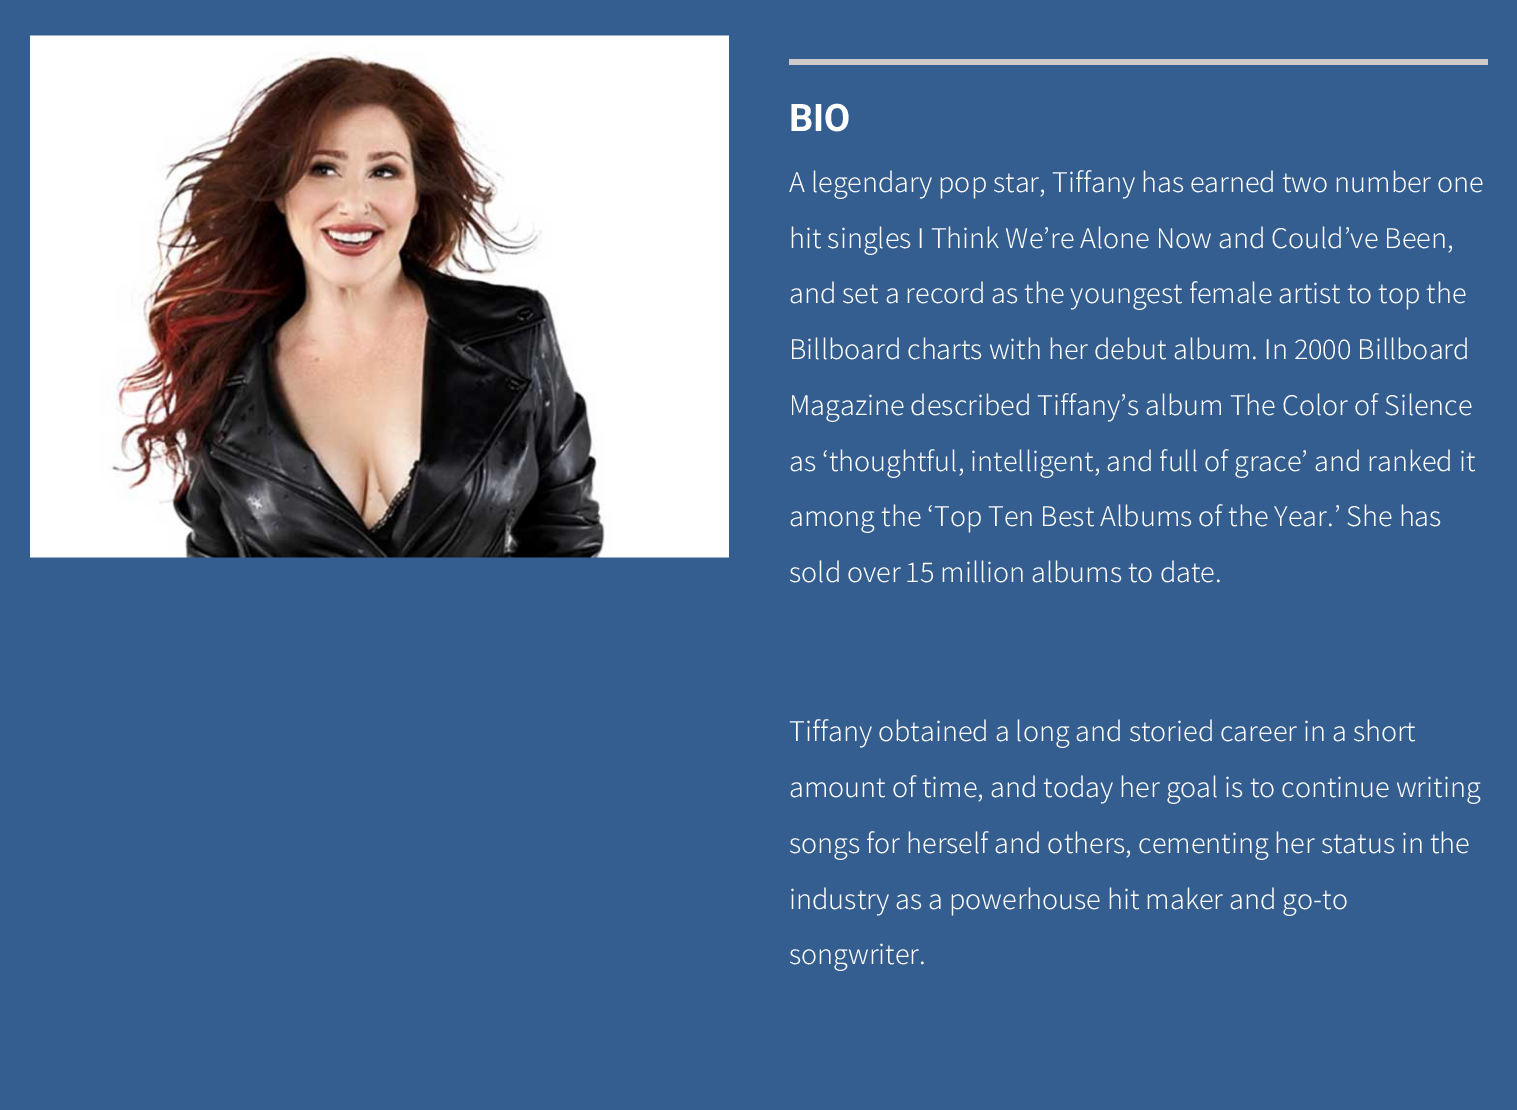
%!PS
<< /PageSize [1517 1110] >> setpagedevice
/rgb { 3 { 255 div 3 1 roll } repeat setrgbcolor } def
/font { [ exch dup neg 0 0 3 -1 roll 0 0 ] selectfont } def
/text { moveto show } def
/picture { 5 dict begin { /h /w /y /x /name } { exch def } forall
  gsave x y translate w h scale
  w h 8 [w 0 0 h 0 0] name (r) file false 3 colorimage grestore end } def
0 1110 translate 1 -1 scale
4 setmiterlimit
53 94 144 rgb
0 0 1517 1110 rectfill
(img_01.rgb) 30 35 699 523 picture
207 202 202 rgb
789 59 699 6 rectfill
/Roboto-Bold 38 font
255 255 255 rgb
(BIO) 789 131 text
/Assistant-Light 30 font
(A legendary pop star, Tiffany has earned two number one) 789 192 text
(hit singles I Think We’re Alone Now and Could’ve Been,) 789 248 text
(and set a record as the youngest female artist to top the) 789 303 text
(Billboard charts with her debut album. In 2000 Billboard) 789 359 text
(Magazine described Tiffany’s album The Color of Silence) 789 415 text
(as ‘thoughtful, intelligent, and full of grace’ and ranked it) 789 471 text
(among the ‘Top Ten Best Albums of the Year.’ She has) 789 526 text
(sold over 15 million albums to date.) 789 582 text
(Tiffany obtained a long and storied career in a short) 789 741 text
(amount of time, and today her goal is to continue writing) 789 797 text
(songs for herself and others, cementing her status in the) 789 853 text
(industry as a powerhouse hit maker and go-to) 789 909 text
(songwriter.) 789 964 text
showpage
